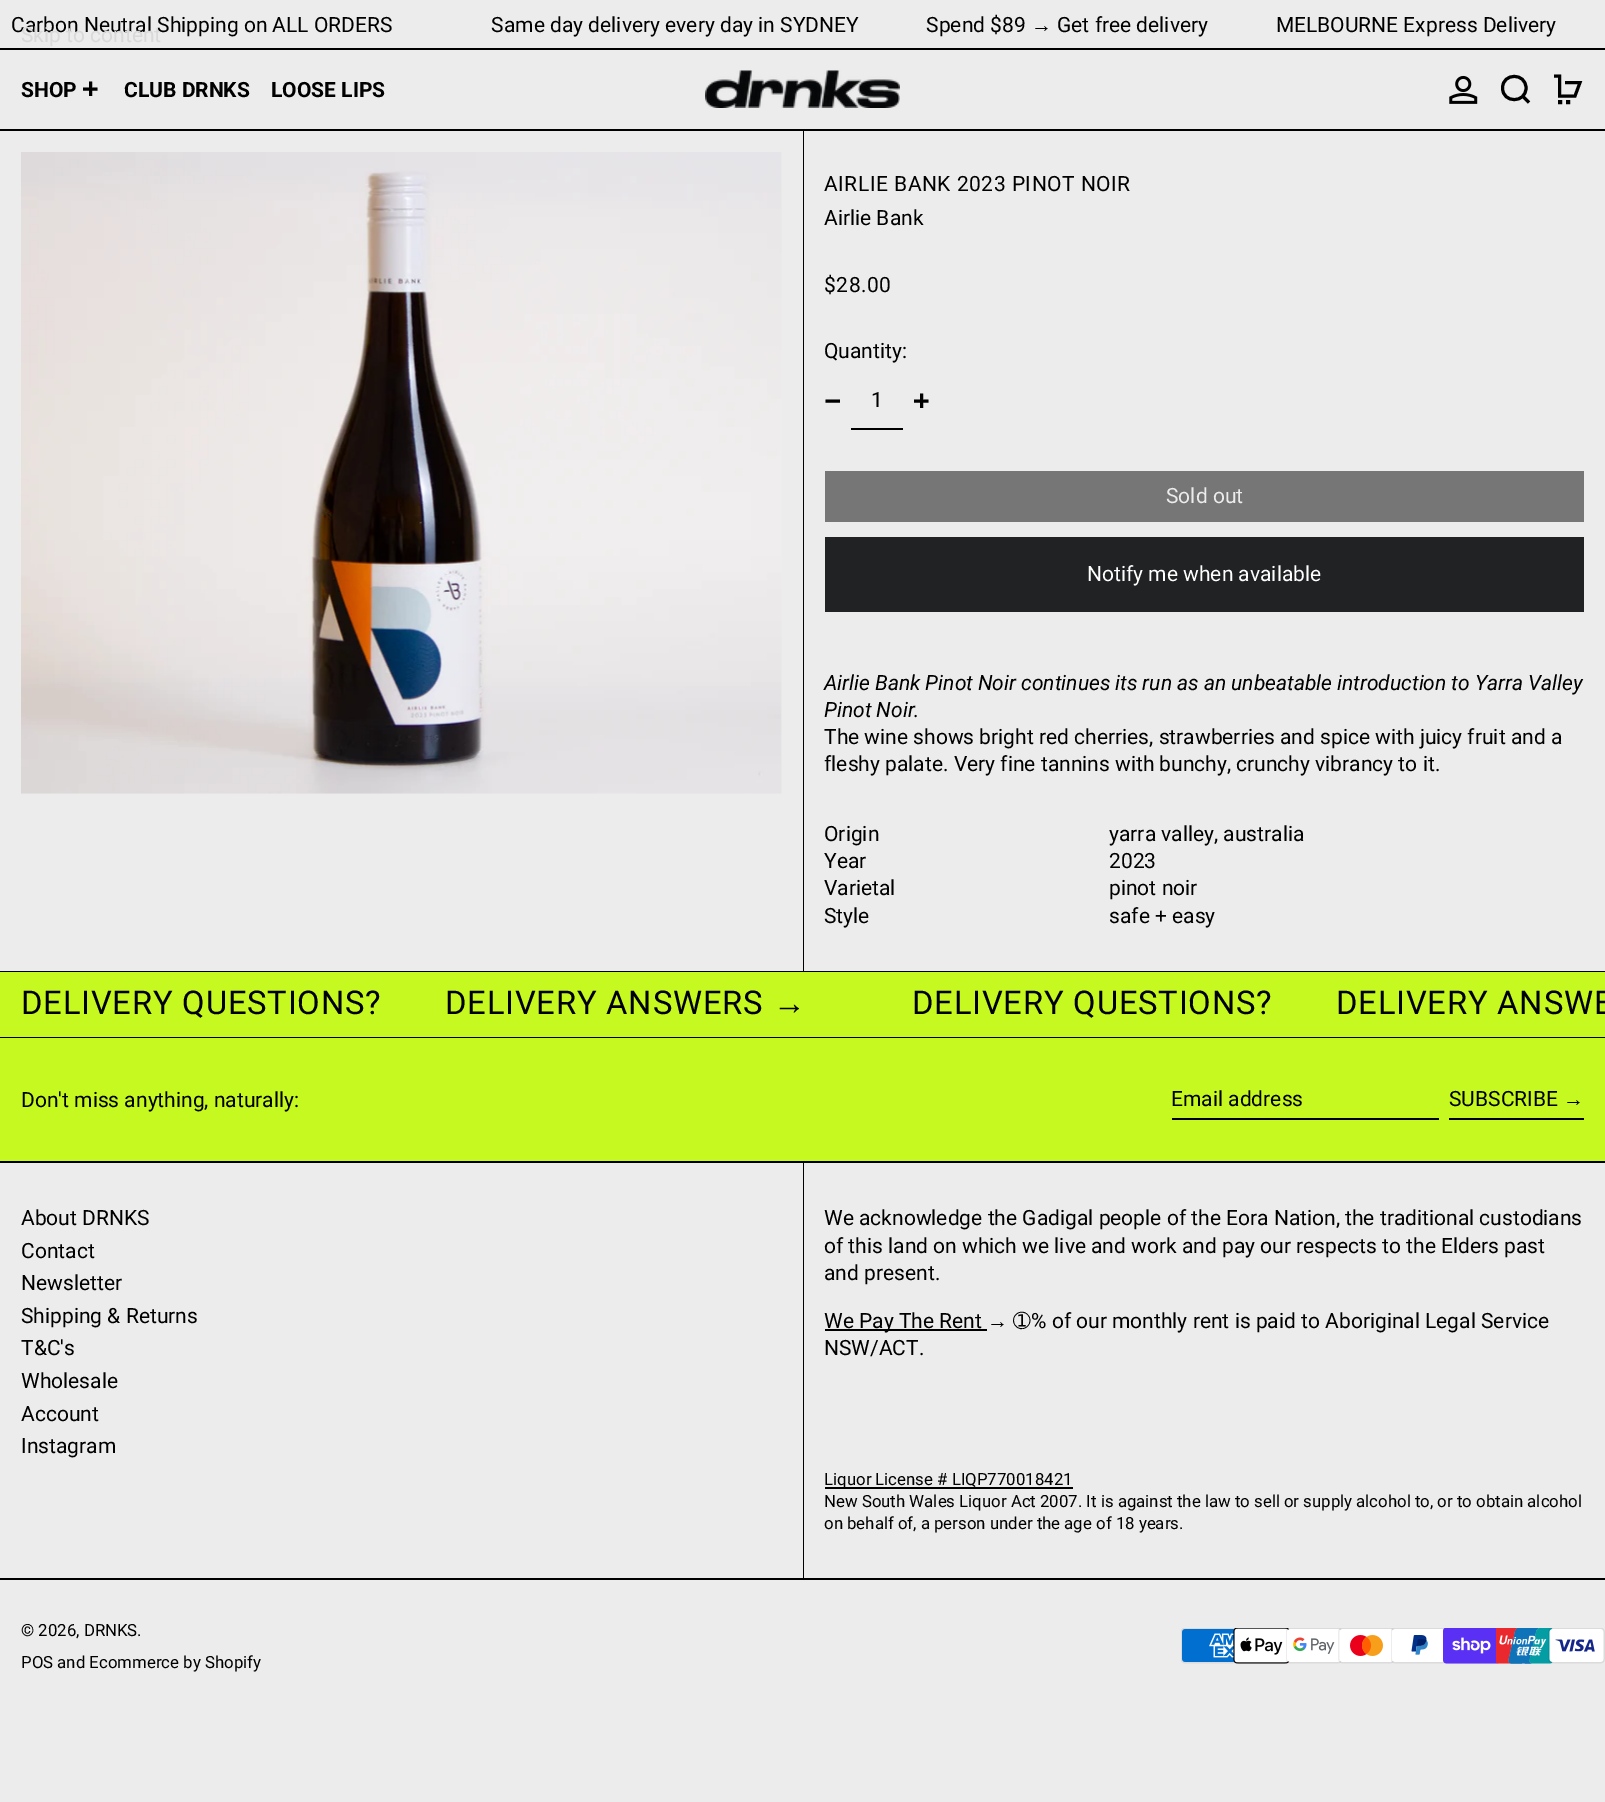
%!PS
<< /PageSize [1605 1802] >> setpagedevice
/rgb { 3 { 255 div 3 1 roll } repeat setrgbcolor } def
/font { [ exch dup neg 0 0 3 -1 roll 0 0 ] selectfont } def
/text { moveto show } def
/picture { 5 dict begin { /h /w /y /x /name } { exch def } forall
  gsave x y translate w h scale
  w h 8 [w 0 0 h 0 0] name (r) file false 3 colorimage grestore end } def
0 1802 translate 1 -1 scale
4 setmiterlimit
236 236 236 rgb
0 0 1605 1802 rectfill
0 0 0 rgb
0 48 1605 2 rectfill
0 129 1605 2 rectfill
3 setlinewidth
90.5 81.5 moveto 0 14.5 rlineto 83 89 moveto 14.5 0 rlineto stroke
(img_01.rgb) 705 70 195 38 picture
(img_02.rgb) 1449 75 29 29 picture
1502.5 88 moveto 0 15.5 23.5 15.5 23.5 0 rcurveto 0 -15.5 -23.5 -15.5 -23.5 0 rcurveto closepath 1523 96.5 moveto 6 6 rlineto stroke
1554 76 moveto 5.5 0 rlineto 0 20 rlineto 15.5 0 rlineto 5 -13.5 rlineto -15 0 rlineto 1559.5 102.5 moveto 0 -1 rlineto 1 0 rlineto 0 1 rlineto closepath 1567.5 102.5 moveto 0 -1 rlineto 1 0 rlineto 0 1 rlineto closepath stroke
803 131 1 840 rectfill
0 971 1605 1 rectfill
(img_03.rgb) 21 152 761 642 picture
825.5 401 moveto 14.5 0 rlineto stroke
851 428 52 2 rectfill
921.5 393.5 moveto 0 14.5 rlineto 914 401 moveto 14.5 0 rlineto stroke
118 118 118 rgb
825 471 759 51 rectfill
32 34 35 rgb
825 537 759 75 rectfill
198 249 31 rgb
0 972 1605 65 rectfill
0 0 0 rgb
0 1037 1605 1 rectfill
198 249 31 rgb
0 1038 1605 123 rectfill
0 0 0 rgb
0 1161 1605 2 rectfill
1172 1118 267 2 rectfill
1449 1118 135 2 rectfill
0 1578 1605 2 rectfill
803 1163 1 415 rectfill
825 1329 162 2 rectfill
825 1487 248 2 rectfill
(img_04.rgb) 1181 1628 55 36 picture
(img_05.rgb) 1233 1628 57 36 picture
(img_06.rgb) 1286 1628 56 36 picture
(img_07.rgb) 1338 1628 56 36 picture
(img_08.rgb) 1391 1628 54 36 picture
(img_09.rgb) 1443 1628 56 36 picture
(img_10.rgb) 1496 1628 57 36 picture
(img_11.rgb) 1548 1628 57 36 picture
/Roboto-Regular 21 font
(Carbon Neutral Shipping on ALL ORDERS                   Same day delivery every day in SYDNEY             Spend $89) 11 32 text
/LiberationSans-Regular 21 font
(→) 1031 32 text
/Roboto-Regular 21 font
(Get free delivery             MELBOURNE Express Delivery) 1057 32 text
217 217 217 rgb
(Skip to content) 21 42 text
/Roboto-Bold 21 font
0 0 0 rgb
(SHOP) 21 97 text
(CLUB DRNKS) 124 97 text
(LOOSE LIPS) 271 97 text
/Roboto-Regular 21 font
824 191 moveto 0.5 0 (AIRLIE BANK 2023 PINOT NOIR) ashow
(Airlie Bank) 824 225 text
824 292 moveto 0.5 0 ($28.00) ashow
(Quantity:) 824 358 text
(1) 871 407 text
236 236 236 rgb
(Sold out) 1166 503 text
255 255 255 rgb
(Notify me when available) 1087 581 text
/Roboto-Italic 21 font
0 0 0 rgb
(Airlie Bank Pinot Noir continues its run as an unbeatable introduction to Yarra Valley) 824 690 text
(Pinot Noir.) 824 717 text
/Roboto-Regular 21 font
(The wine shows bright red cherries, strawberries and spice with juicy fruit and a) 824 744 text
(fleshy palate. Very fine tannins with bunchy, crunchy vibrancy to it.) 824 771 text
(Origin) 824 841 text
(yarra valley, australia) 1109 841 text
(Year) 824 868 text
(2023) 1109 868 text
(Varietal) 824 895 text
(pinot noir) 1109 895 text
(Style) 824 923 text
(safe + easy) 1109 923 text
/Roboto-Regular 32.75 font
21 1014 moveto 0.8 0 (DELIVERY QUESTIONS?) ashow
445 1014 moveto 0.8 0 (DELIVERY ANSWERS) ashow
/LiberationSans-Regular 32.75 font
773 1014 moveto 0.8 0 (→) ashow
/Roboto-Regular 32.75 font
912 1014 moveto 0.8 0 (DELIVERY QUESTIONS?) ashow
1336 1014 moveto 0.8 0 (DELIVERY ANSWE) ashow
/Roboto-Regular 21 font
(Don't miss anything, naturally:) 21 1107 text
(Email address) 1171 1106 text
(SUBSCRIBE) 1449 1106 text
/LiberationSans-Regular 21 font
(→) 1563 1106 text
/Roboto-Regular 21 font
(About DRNKS) 21 1225 text
(Contact) 21 1258 text
(Newsletter) 21 1290 text
(Shipping & Returns) 21 1323 text
(T&C's) 21 1355 text
(Wholesale) 21 1388 text
(Account) 21 1421 text
(Instagram) 21 1453 text
(We acknowledge the Gadigal people of the Eora Nation, the traditional custodians) 824 1225 text
(of this land on which we live and work and pay our respects to the Elders past) 824 1253 text
(and present.) 824 1280 text
(We Pay The Rent) 824 1328 text
/LiberationSans-Regular 21 font
(→) 987 1328 text
/DejaVuSans-Regular 21 font
(➀) 1013 1328 text
/Roboto-Regular 21 font
(% of our monthly rent is paid to Aboriginal Legal Service) 1031 1328 text
(NSW/ACT.) 824 1355 text
/Roboto-Regular 16.8 font
(Liquor License # LIQP770018421) 824 1485 text
(New South Wales Liquor Act 2007. It is against the law to sell or supply alcohol to, or to obtain alcohol) 824 1507 text
(on behalf of, a person under the age of 18 years.) 824 1529 text
(© 2026, DRNKS.) 21 1636 text
(POS and Ecommerce by Shopify) 21 1668 text
showpage
